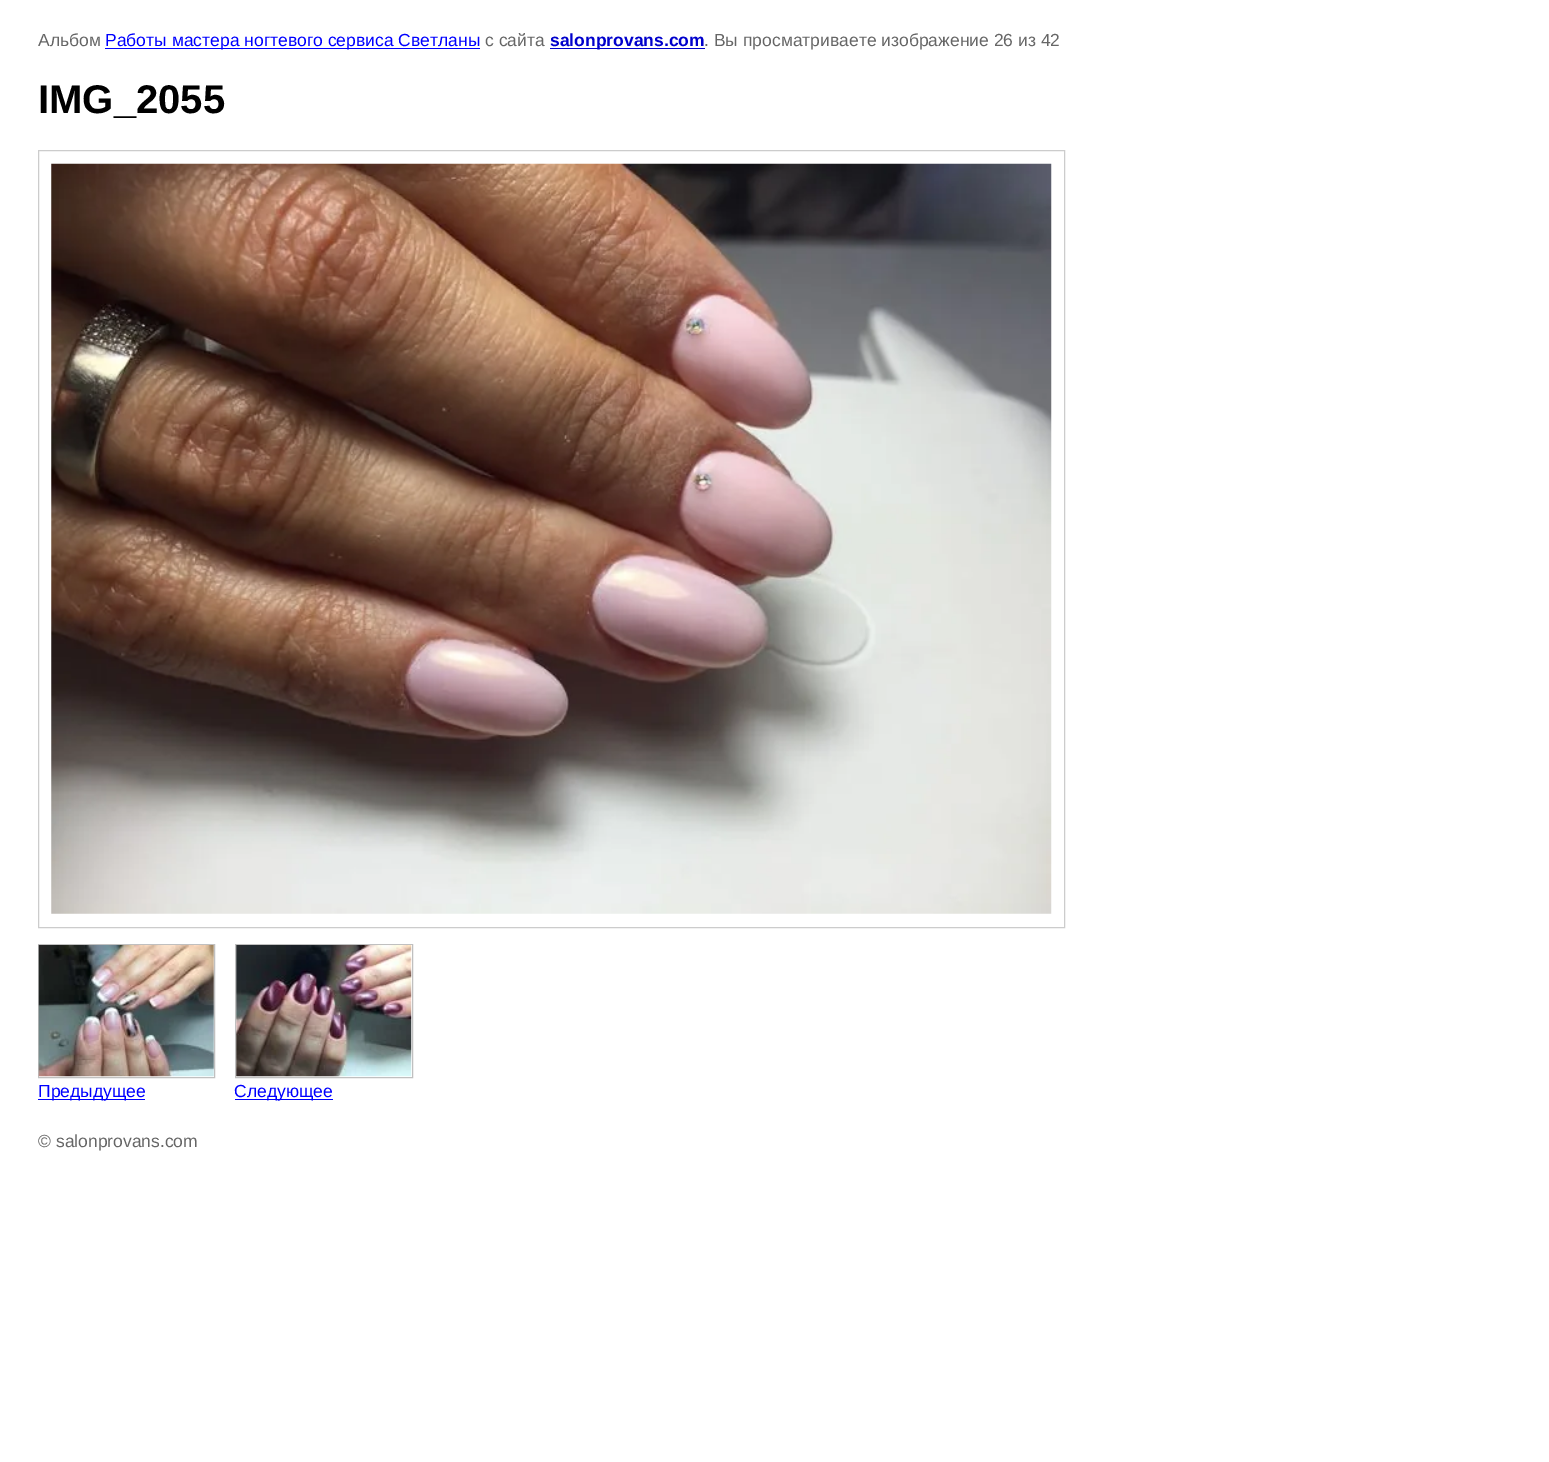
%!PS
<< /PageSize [1549 1462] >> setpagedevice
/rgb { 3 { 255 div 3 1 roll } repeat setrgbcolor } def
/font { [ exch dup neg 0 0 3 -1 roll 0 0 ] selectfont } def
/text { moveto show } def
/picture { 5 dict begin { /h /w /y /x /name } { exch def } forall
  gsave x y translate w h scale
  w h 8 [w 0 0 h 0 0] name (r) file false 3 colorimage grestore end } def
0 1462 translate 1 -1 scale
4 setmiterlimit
255 255 255 rgb
0 0 1549 1462 rectfill
0 0 255 rgb
105 48 375 1 rectfill
0 0 204 rgb
550 48 155 1 rectfill
204 204 204 rgb
38.5 150.5 1026 777 rectstroke
(img_01.rgb) 51 163 1001 751 picture
192 192 192 rgb
38.5 944.5 176 133 rectstroke
(img_02.rgb) 38 945 176 132 picture
0 0 255 rgb
38 1099 107 1 rectfill
192 192 192 rgb
235.5 944.5 177 133 rectstroke
(img_03.rgb) 236 945 176 132 picture
0 0 255 rgb
235 1099 98 1 rectfill
/LiberationSans-Regular 17.5 font
102 102 102 rgb
(Альбом) 38 46 text
0 0 255 rgb
(Работы мастера ногтевого сервиса Светланы) 105 46 text
102 102 102 rgb
(с сайта) 485 46 text
/LiberationSans-Bold 17.5 font
0 0 204 rgb
(salonprovans.com) 550 46 text
/LiberationSans-Regular 17.5 font
102 102 102 rgb
(. Вы просматриваете изображение 26 из 42) 704 46 text
/LiberationSans-Bold 40 font
0 0 0 rgb
(IMG_2055) 38 113 text
/LiberationSans-Regular 17.5 font
0 0 255 rgb
(Предыдущее) 38 1097 text
(Следующее) 234 1097 text
102 102 102 rgb
(© salonprovans.com) 38 1147 text
showpage
